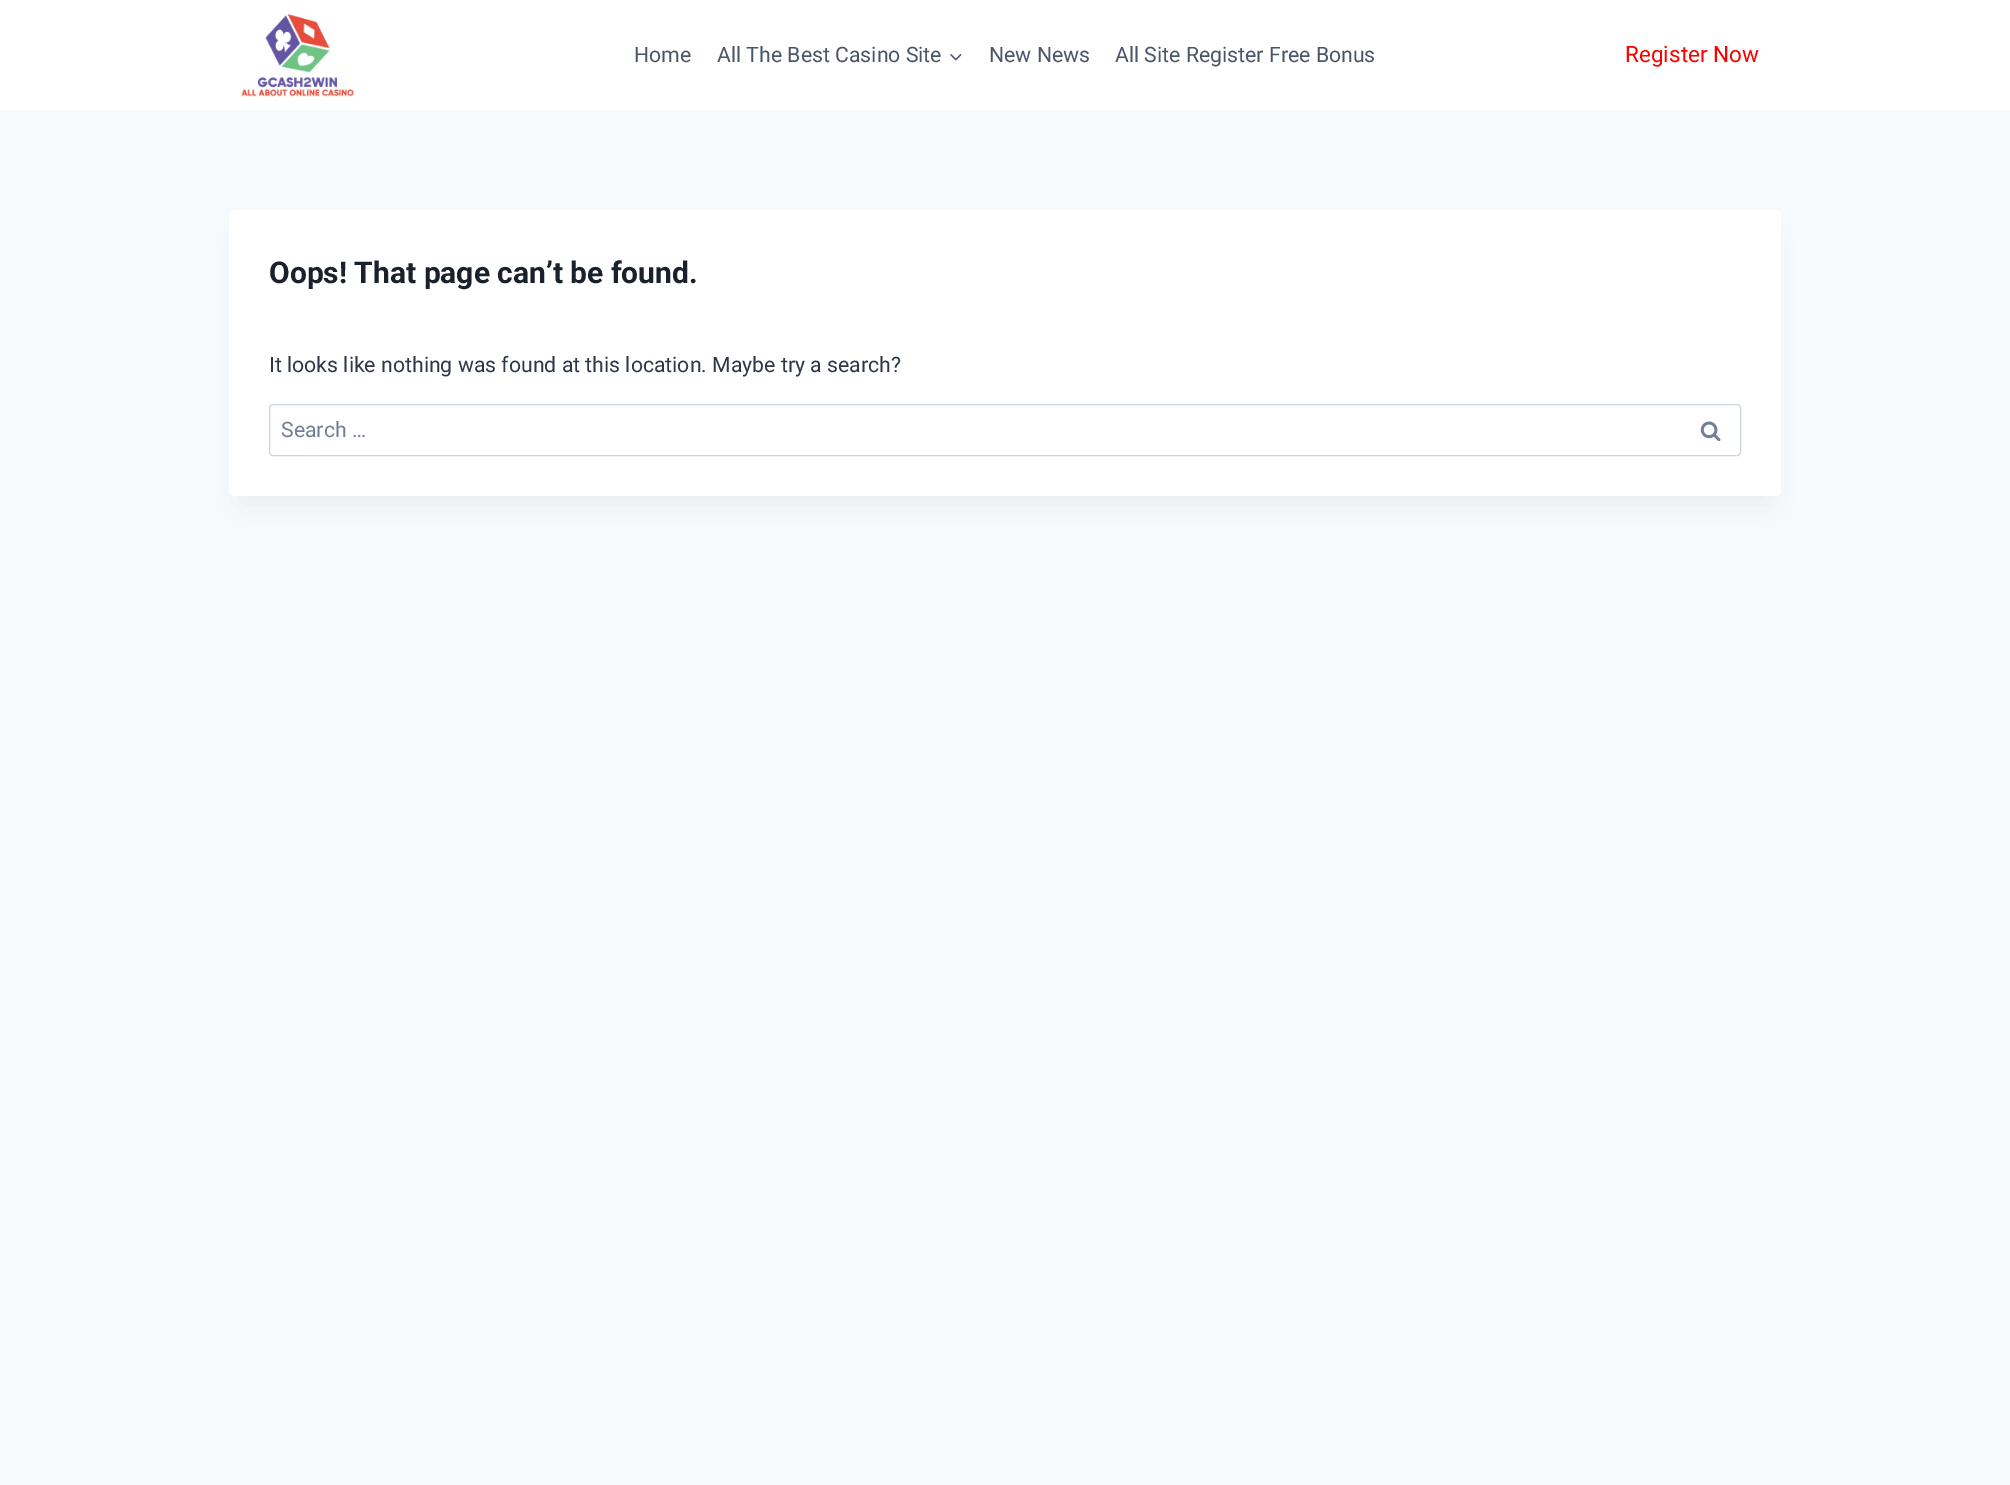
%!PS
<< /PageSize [2010 1485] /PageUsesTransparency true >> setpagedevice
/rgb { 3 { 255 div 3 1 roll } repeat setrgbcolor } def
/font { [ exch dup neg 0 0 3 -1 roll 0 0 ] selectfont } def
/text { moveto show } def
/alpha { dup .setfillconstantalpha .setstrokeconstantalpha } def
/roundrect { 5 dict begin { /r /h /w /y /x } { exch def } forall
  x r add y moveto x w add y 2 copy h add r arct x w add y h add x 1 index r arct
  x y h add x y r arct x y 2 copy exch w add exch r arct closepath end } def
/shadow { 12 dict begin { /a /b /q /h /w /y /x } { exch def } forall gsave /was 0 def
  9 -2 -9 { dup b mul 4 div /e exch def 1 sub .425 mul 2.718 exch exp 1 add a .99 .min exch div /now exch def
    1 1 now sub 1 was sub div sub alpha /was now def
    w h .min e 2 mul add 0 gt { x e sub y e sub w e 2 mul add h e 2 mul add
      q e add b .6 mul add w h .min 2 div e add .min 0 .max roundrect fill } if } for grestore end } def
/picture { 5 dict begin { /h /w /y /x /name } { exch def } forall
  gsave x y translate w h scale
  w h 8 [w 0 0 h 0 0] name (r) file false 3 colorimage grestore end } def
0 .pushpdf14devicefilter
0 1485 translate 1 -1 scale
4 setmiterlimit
247 250 252 rgb
0 0 2010 1485 rectfill
255 255 255 rgb
0 0 2010 110 rectfill
(img_01.rgb) 241 13 113 84 picture
(img_02.rgb) 950 54 12 7 picture
0 0 0 rgb
241 241 1528 262 0 15.5 0.05 shadow
255 255 255 rgb
229 210 1552 286 5 roundrect fill
203 213 224 rgb
269.5 404.5 1471 51 3.5 roundrect stroke
(img_03.rgb) 1700 421 21 20 picture
/Roboto-Regular 21.25 font
74 85 104 rgb
(Home) 634 62 text
(All The Best Casino Site) 717 62 text
(New News) 989 62 text
(All Site Register Free Bonus) 1115 62 text
/Roboto-Regular 22.5 font
253 0 0 rgb
(Register Now) 1625 62 text
/Roboto-Bold 30 font
26 32 44 rgb
(Oops! That page can’t be found.) 269 283 text
/Roboto-Regular 21.25 font
45 55 72 rgb
(It looks like nothing was found at this location. Maybe try a search?) 269 372 text
113 128 150 rgb
(Search …) 281 437 text
.poppdf14devicefilter showpage
